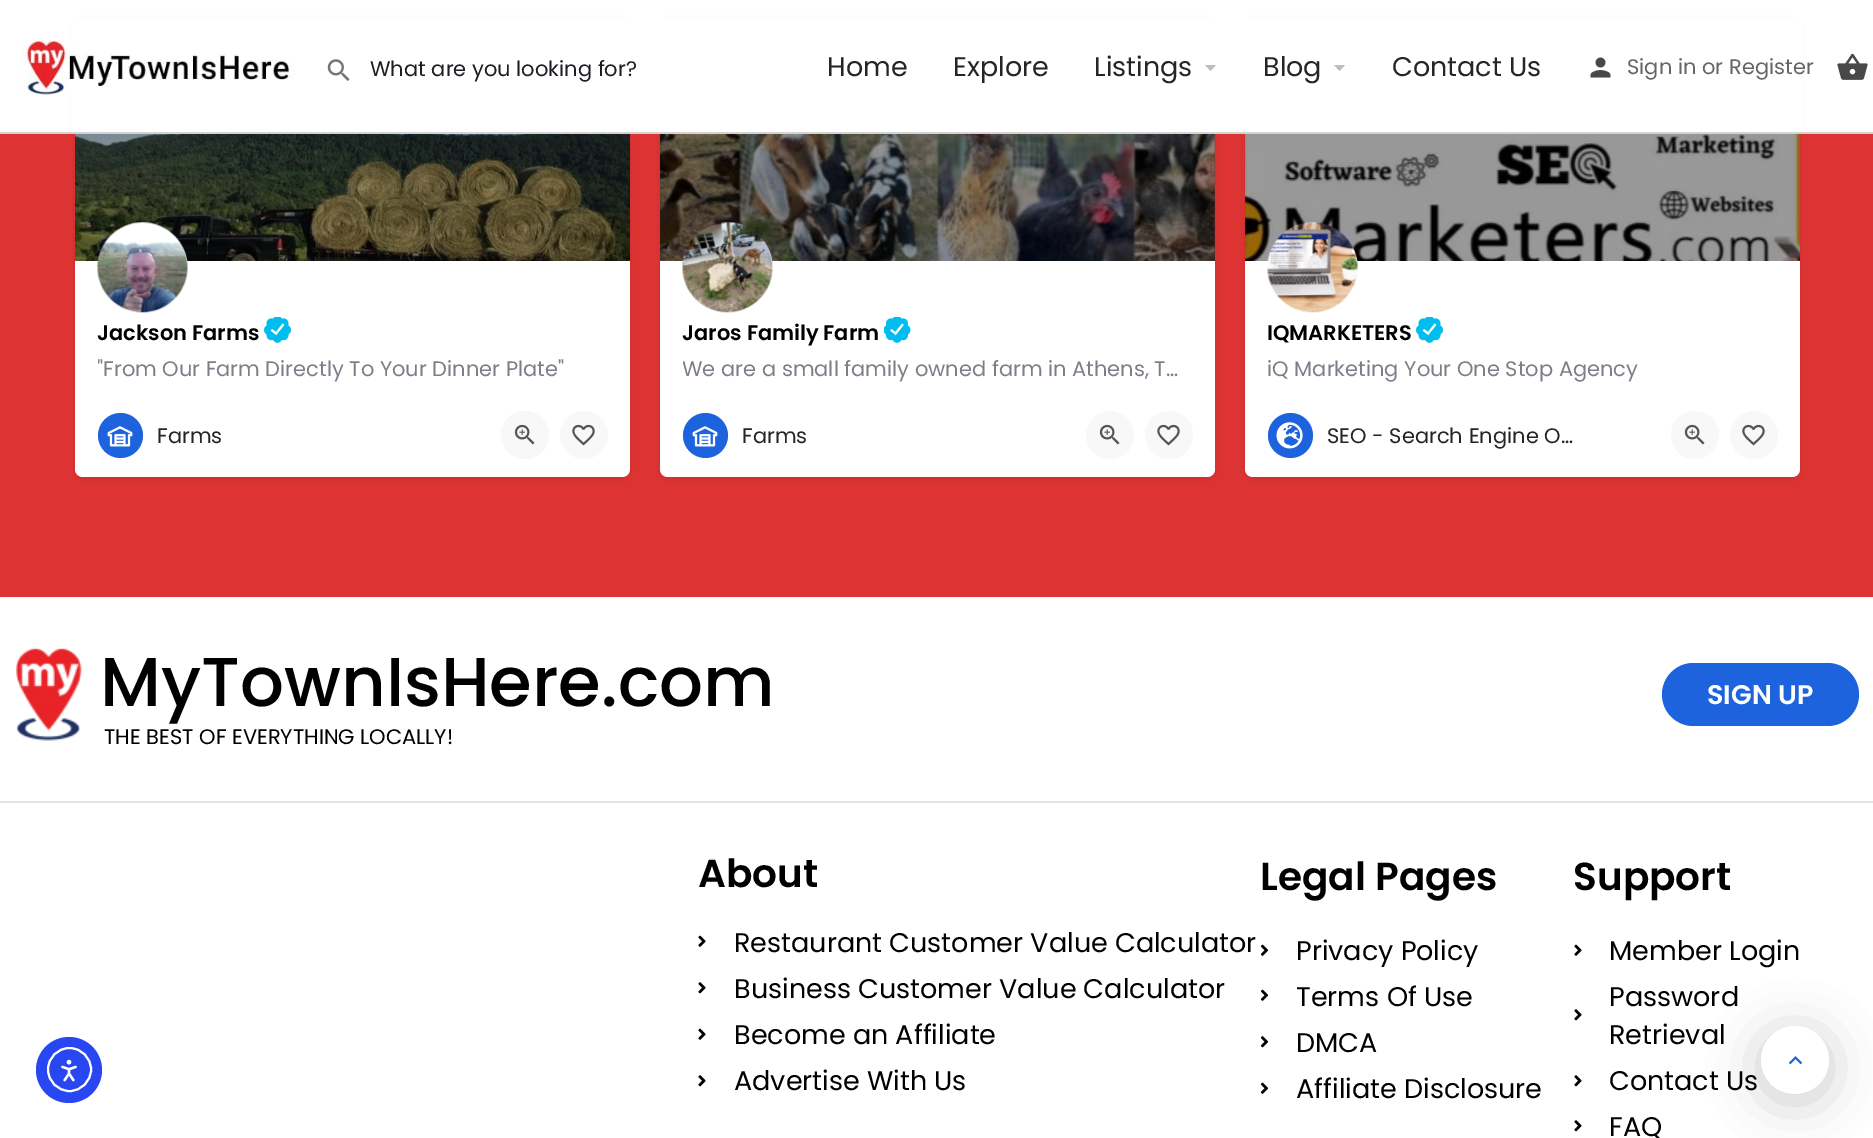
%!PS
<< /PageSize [1873 1138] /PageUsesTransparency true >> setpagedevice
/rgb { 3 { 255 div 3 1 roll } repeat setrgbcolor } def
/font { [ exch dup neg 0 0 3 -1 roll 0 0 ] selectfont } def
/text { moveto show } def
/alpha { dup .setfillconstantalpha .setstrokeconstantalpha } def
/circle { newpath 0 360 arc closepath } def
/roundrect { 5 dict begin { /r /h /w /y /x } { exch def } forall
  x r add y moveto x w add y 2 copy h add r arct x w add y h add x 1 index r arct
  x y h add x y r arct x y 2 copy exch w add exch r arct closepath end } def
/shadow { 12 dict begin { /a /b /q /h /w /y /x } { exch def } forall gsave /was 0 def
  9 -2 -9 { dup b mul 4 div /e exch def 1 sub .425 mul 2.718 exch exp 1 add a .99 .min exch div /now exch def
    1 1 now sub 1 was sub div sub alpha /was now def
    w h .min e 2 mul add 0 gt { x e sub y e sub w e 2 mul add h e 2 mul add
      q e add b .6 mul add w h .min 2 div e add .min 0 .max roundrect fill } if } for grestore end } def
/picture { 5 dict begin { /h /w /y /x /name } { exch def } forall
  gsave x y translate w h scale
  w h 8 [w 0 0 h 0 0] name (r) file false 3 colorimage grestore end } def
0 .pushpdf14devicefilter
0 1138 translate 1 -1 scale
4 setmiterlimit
255 255 255 rgb
0 0 1873 1138 rectfill
221 51 51 rgb
0 134 1873 463 rectfill
0 0 0 rgb
75 21 555 458 8 3 0.07 shadow
660 21 555 458 8 3 0.07 shadow
1245 21 555 458 8 3 0.07 shadow
255 255 255 rgb
72 18 1731 114 rectfill
211 211 211 rgb
0 132 1873 2 rectfill
(img_01.rgb) 22 39 272 56 picture
(img_02.rgb) 327 59 23 22 picture
189 189 191 rgb
1205 65 moveto 11 0 rlineto -5.5 6 rlineto closepath fill
1334 65 moveto 11 0 rlineto -5.5 6 rlineto closepath fill
(img_03.rgb) 1590 57 21 21 picture
(img_04.rgb) 1837 53 31 27 picture
(img_05.rgb) 75 134 555 127 picture
0.4 alpha
0 0 0 rgb
75 134 555 127 rectfill
1 alpha
255 255 255 rgb
75 261 555 134 rectfill
143 269 45 circle fill
(img_06.rgb) 97 222 91 91 picture
(img_07.rgb) 264 317 27 26 picture
75 395 moveto 555 0 rlineto 0 74 rlineto 0 4.5 -3.5 8 -8 8 rcurveto -539 0 rlineto -4.5 0 -8 -3.5 -8 -8 rcurveto closepath fill
29 99 222 rgb
120.5 435.5 22.5 circle fill
(img_08.rgb) 107 426 26 21 picture
248 248 248 rgb
525 435 24 circle fill
(img_09.rgb) 514 424 21 21 picture
584 435 24 circle fill
(img_10.rgb) 572 424 23 22 picture
(img_11.rgb) 660 134 555 127 picture
0.4 alpha
0 0 0 rgb
660 134 555 127 rectfill
1 alpha
255 255 255 rgb
660 261 555 134 rectfill
728 269 45 circle fill
(img_12.rgb) 682 222 91 91 picture
(img_13.rgb) 884 317 27 26 picture
660 395 moveto 555 0 rlineto 0 74 rlineto 0 4.5 -3.5 8 -8 8 rcurveto -539 0 rlineto -4.5 0 -8 -3.5 -8 -8 rcurveto closepath fill
29 99 222 rgb
705.5 435.5 22.5 circle fill
(img_08.rgb) 692 426 26 21 picture
248 248 248 rgb
1110 435 24 circle fill
(img_09.rgb) 1099 424 21 21 picture
1169 435 24 circle fill
(img_10.rgb) 1157 424 23 22 picture
(img_14.rgb) 1245 134 555 127 picture
0.4 alpha
0 0 0 rgb
1245 134 555 127 rectfill
1 alpha
255 255 255 rgb
1245 261 555 134 rectfill
1313 269 45 circle fill
(img_15.rgb) 1267 222 91 91 picture
(img_07.rgb) 1416 317 27 26 picture
1245 395 moveto 555 0 rlineto 0 74 rlineto 0 4.5 -3.5 8 -8 8 rcurveto -539 0 rlineto -4.5 0 -8 -3.5 -8 -8 rcurveto closepath fill
29 99 222 rgb
1290.5 435.5 22.5 circle fill
(img_16.rgb) 1276 422 27 27 picture
248 248 248 rgb
1695 435 24 circle fill
(img_09.rgb) 1684 424 21 21 picture
1754 435 24 circle fill
(img_10.rgb) 1742 424 23 22 picture
(img_17.rgb) 16 647 66 94 picture
29 99 222 rgb
1662 663 197 63 31.5 roundrect fill
226 226 226 rgb
0 801 1873 2 rectfill
(img_18.rgb) 698 935 8 12 picture
(img_19.rgb) 698 982 8 12 picture
(img_18.rgb) 698 1028 8 12 picture
(img_19.rgb) 698 1075 8 12 picture
(img_20.rgb) 1260 944 9 12 picture
(img_20.rgb) 1260 989 9 12 picture
(img_21.rgb) 1260 1036 9 12 picture
(img_20.rgb) 1260 1082 9 12 picture
(img_18.rgb) 1574 944 8 12 picture
(img_19.rgb) 1574 1009 8 12 picture
(img_19.rgb) 1574 1075 8 12 picture
(img_19.rgb) 1574 1120 8 12 picture
40 71 243 rgb
69 1070 33 circle fill
255 255 255 rgb
2 setlinewidth
69.5 1069.5 21.5 circle stroke
(img_22.rgb) 61 1059 16 23 picture
0 0 0 rgb
1761 1034 68 67 33.5 25 0.2 shadow
255 255 255 rgb
1795 1060 34 circle fill
(img_23.rgb) 1788 1056 15 9 picture
/Poppins-Regular 21 font
29 29 35 rgb
(What are you looking for?) 370 76 text
/Poppins-Regular 27 font
36 36 41 rgb
(Home) 827 76 text
(Explore) 953 76 text
(Listings) 1094 76 text
(Blog) 1263 76 text
(Contact Us) 1392 76 text
/Poppins-Regular 21 font
102 102 105 rgb
(Sign in) 1627 74 text
(or) 1702 74 text
(Register) 1729 74 text
/Poppins-SemiBold 21 font
0 0 0 rgb
(Jackson Farms) 97 340 text
gsave
98 354 510 30 rectclip
/Poppins-Regular 21 font
126 126 137 rgb
("From Our Farm Directly To Your Dinner Plate") 97 376 text
grestore
/Poppins-Regular 21 font
36 36 41 rgb
(Farms) 157 443 text
/Poppins-SemiBold 21 font
0 0 0 rgb
(Jaros Family Farm) 682 340 text
gsave
683 354 510 30 rectclip
/Poppins-Regular 21 font
126 126 137 rgb
(We are a small family owned farm in Athens, T…) 682 376 text
grestore
/Poppins-Regular 21 font
36 36 41 rgb
(Farms) 742 443 text
/Poppins-SemiBold 21 font
0 0 0 rgb
(IQMARKETERS) 1267 340 text
/Poppins-Regular 21 font
126 126 137 rgb
(iQ Marketing Your One Stop Agency) 1267 376 text
36 36 41 rgb
(SEO - Search Engine O…) 1327 443 text
/Poppins-Medium 69 font
0 0 0 rgb
(MyTownIsHere.com) 100 706 text
/Poppins-Regular 21 font
(THE BEST OF EVERYTHING LOCALLY!) 104 744 text
/Poppins-SemiBold 27 font
255 255 255 rgb
(SIGN UP) 1707 704 text
/Poppins-SemiBold 39 font
0 0 0 rgb
(About) 698 887 text
/Poppins-Regular 27 font
(Restaurant Customer Value Calculator) 734 952 text
(Business Customer Value Calculator) 734 998 text
(Become an Affiliate) 734 1044 text
(Advertise With Us) 734 1090 text
/Poppins-SemiBold 39 font
(Legal Pages) 1260 890 text
/Poppins-Regular 27 font
(Privacy Policy) 1296 960 text
(Terms Of Use) 1296 1006 text
(DMCA) 1296 1052 text
(Affiliate Disclosure) 1296 1098 text
/Poppins-SemiBold 39 font
(Support) 1573 890 text
/Poppins-Regular 27 font
(Member Login) 1609 960 text
(Password) 1609 1006 text
(Retrieval) 1609 1044 text
(Contact Us) 1609 1090 text
(FAQ) 1609 1136 text
.poppdf14devicefilter showpage
